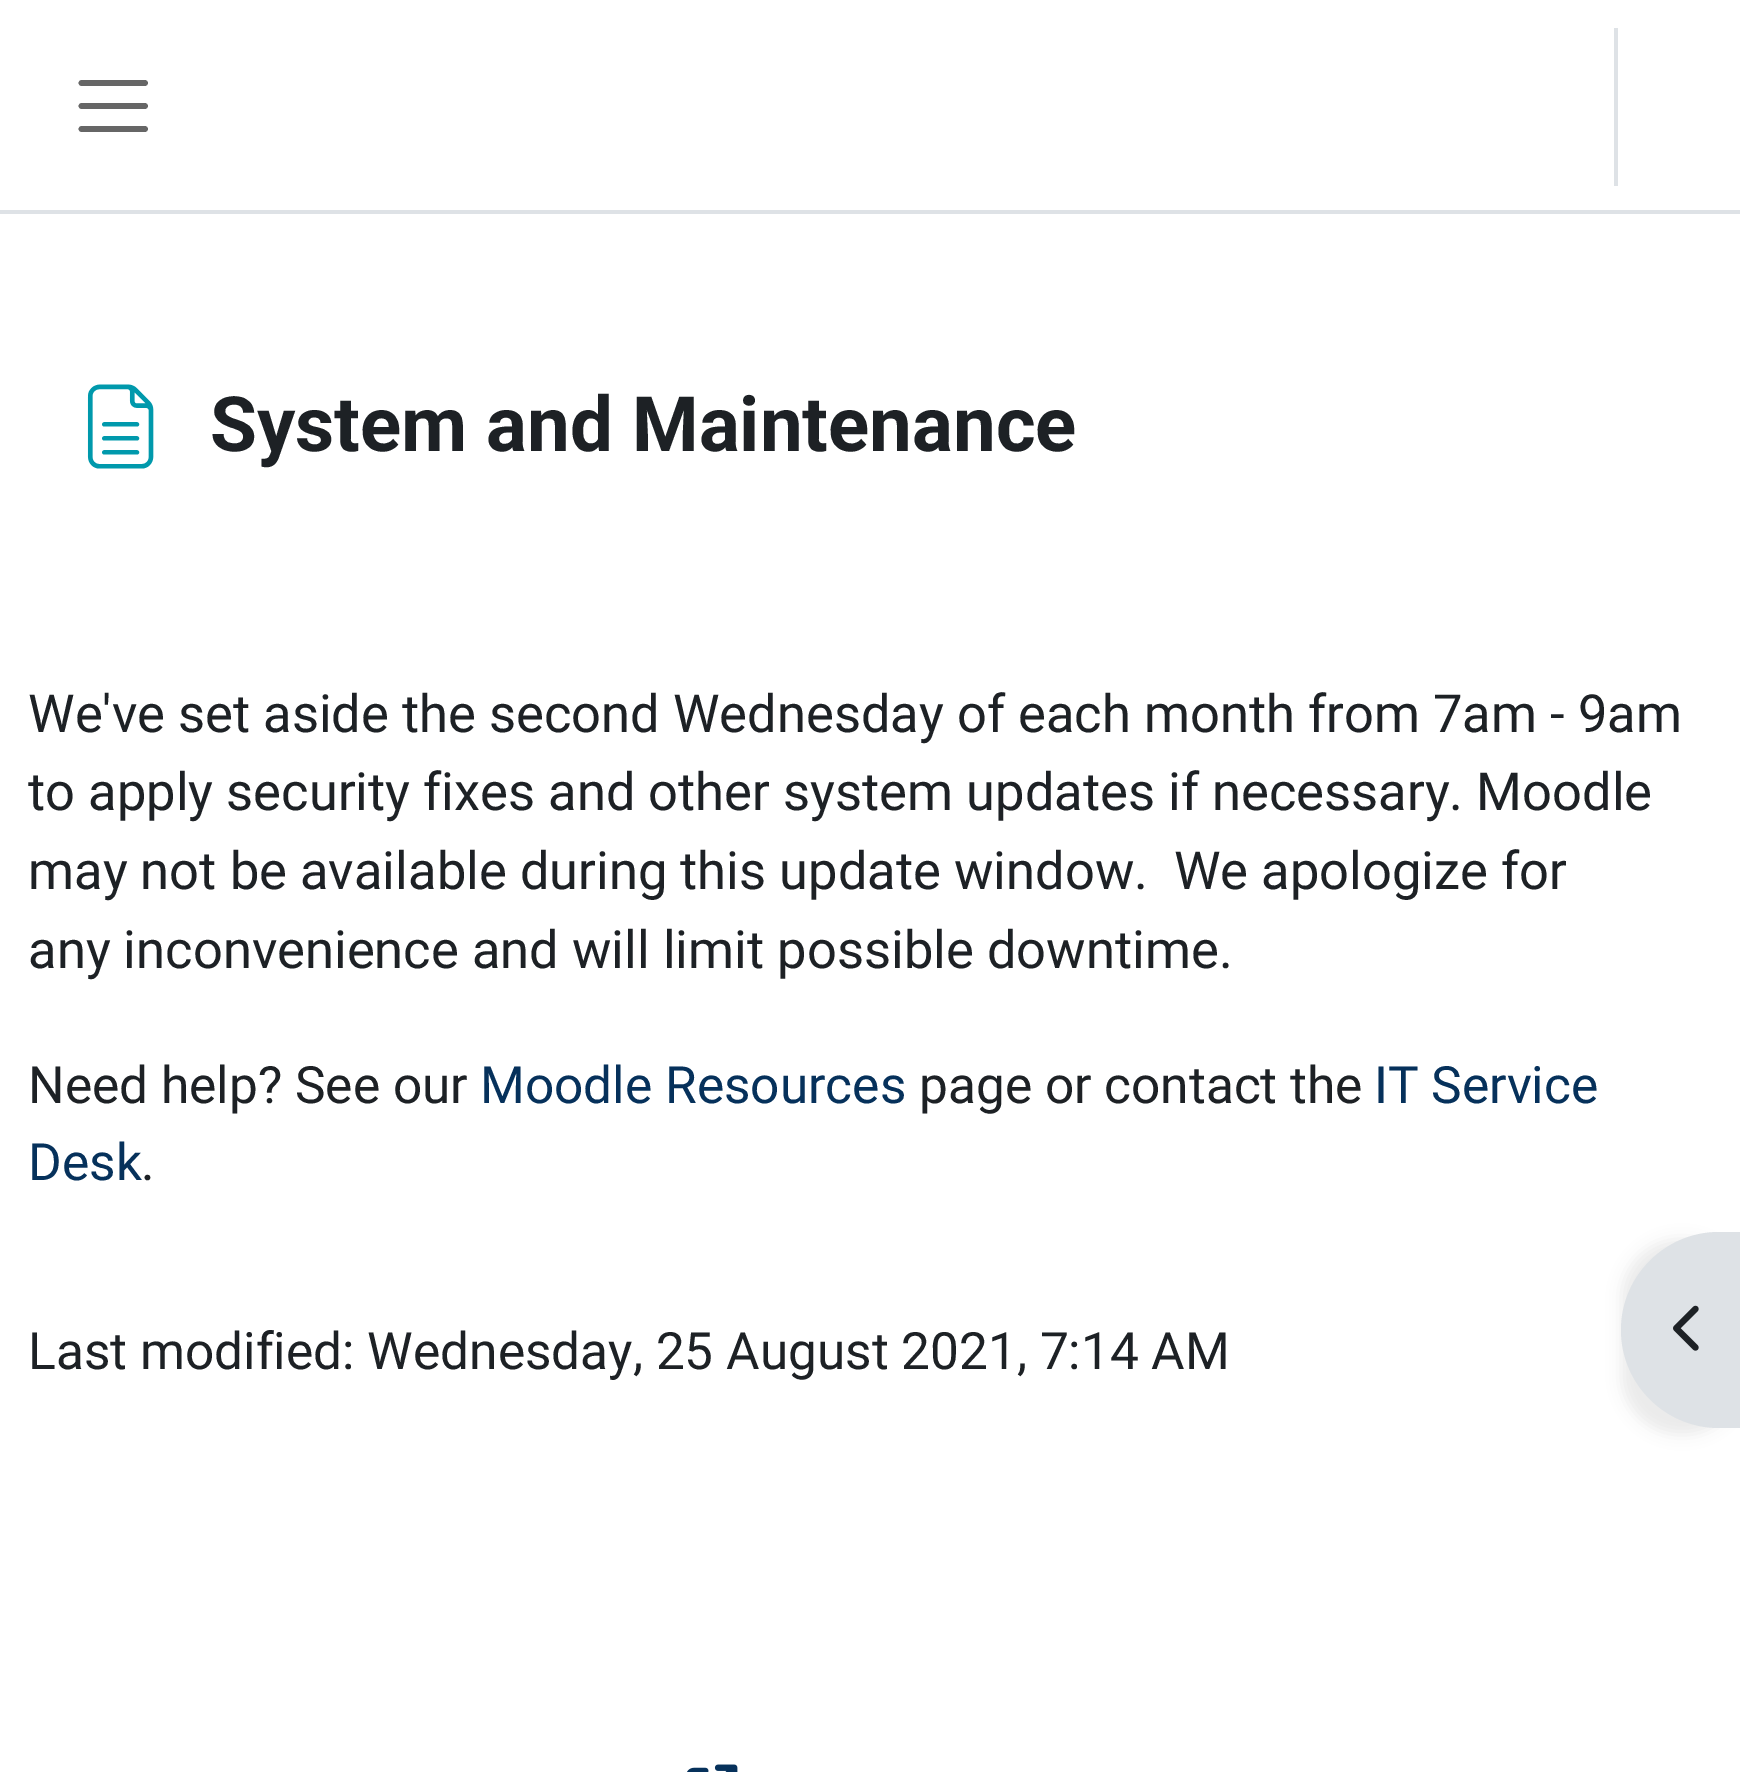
%!PS
<< /PageSize [1740 1772] /PageUsesTransparency true >> setpagedevice
/rgb { 3 { 255 div 3 1 roll } repeat setrgbcolor } def
/font { [ exch dup neg 0 0 3 -1 roll 0 0 ] selectfont } def
/text { moveto show } def
/alpha { dup .setfillconstantalpha .setstrokeconstantalpha } def
/roundrect { 5 dict begin { /r /h /w /y /x } { exch def } forall
  x r add y moveto x w add y 2 copy h add r arct x w add y h add x 1 index r arct
  x y h add x y r arct x y 2 copy exch w add exch r arct closepath end } def
/shadow { 12 dict begin { /a /b /q /h /w /y /x } { exch def } forall gsave /was 0 def
  9 -2 -9 { dup b mul 4 div /e exch def 1 sub .425 mul 2.718 exch exp 1 add a .99 .min exch div /now exch def
    1 1 now sub 1 was sub div sub alpha /was now def
    w h .min e 2 mul add 0 gt { x e sub y e sub w e 2 mul add h e 2 mul add
      q e add b .6 mul add w h .min 2 div e add .min 0 .max roundrect fill } if } for grestore end } def
/picture { 5 dict begin { /h /w /y /x /name } { exch def } forall
  gsave x y translate w h scale
  w h 8 [w 0 0 h 0 0] name (r) file false 3 colorimage grestore end } def
0 .pushpdf14devicefilter
0 1772 translate 1 -1 scale
4 setmiterlimit
255 255 255 rgb
0 0 1740 1772 rectfill
222 226 230 rgb
0 210 1740 4 rectfill
102 102 102 rgb
5.8 setlinewidth
1 setlinecap
81.5 83 moveto 63.5 0 rlineto 81.5 106 moveto 63.5 0 rlineto 81.5 129 moveto 63.5 0 rlineto stroke
222 226 230 rgb
1614 28 4 158 rectfill
(img_01.rgb) 87 384 67 85 picture
0 0 0 rgb
1621 1239 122 196 98 7 0.07 shadow
222 226 230 rgb
1719 1232 moveto 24 0 rlineto 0 196 rlineto -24 0 rlineto -54 0 -98 -44 -98 -98 rcurveto 0 -54 44 -98 98 -98 rcurveto closepath fill
(img_02.rgb) 1673 1305 26 46 picture
(img_03.rgb) 687 1764 51 8 picture
/Roboto-Bold 76.25 font
29 33 37 rgb
(System and Maintenance) 210 451 text
/Roboto-Regular 52.5 font
(We've set aside the second Wednesday of each month from 7am - 9am) 28 732 text
(to apply security fixes and other system updates if necessary. Moodle) 28 810 text
(may not be available during this update window.  We apologize for) 28 889 text
(any inconvenience and will limit possible downtime.) 28 968 text
/Roboto-Regular 51.4 font
(Need help? See our) 28 1103 text
6 49 91 rgb
(Moodle Resources) 480 1103 text
29 33 37 rgb
(page or contact the) 919 1103 text
6 49 91 rgb
(IT Service) 1374 1103 text
(Desk) 28 1180 text
29 33 37 rgb
(.) 141 1180 text
(Last modified: Wednesday, 25 August 2021, 7:14 AM) 28 1369 text
.poppdf14devicefilter showpage
